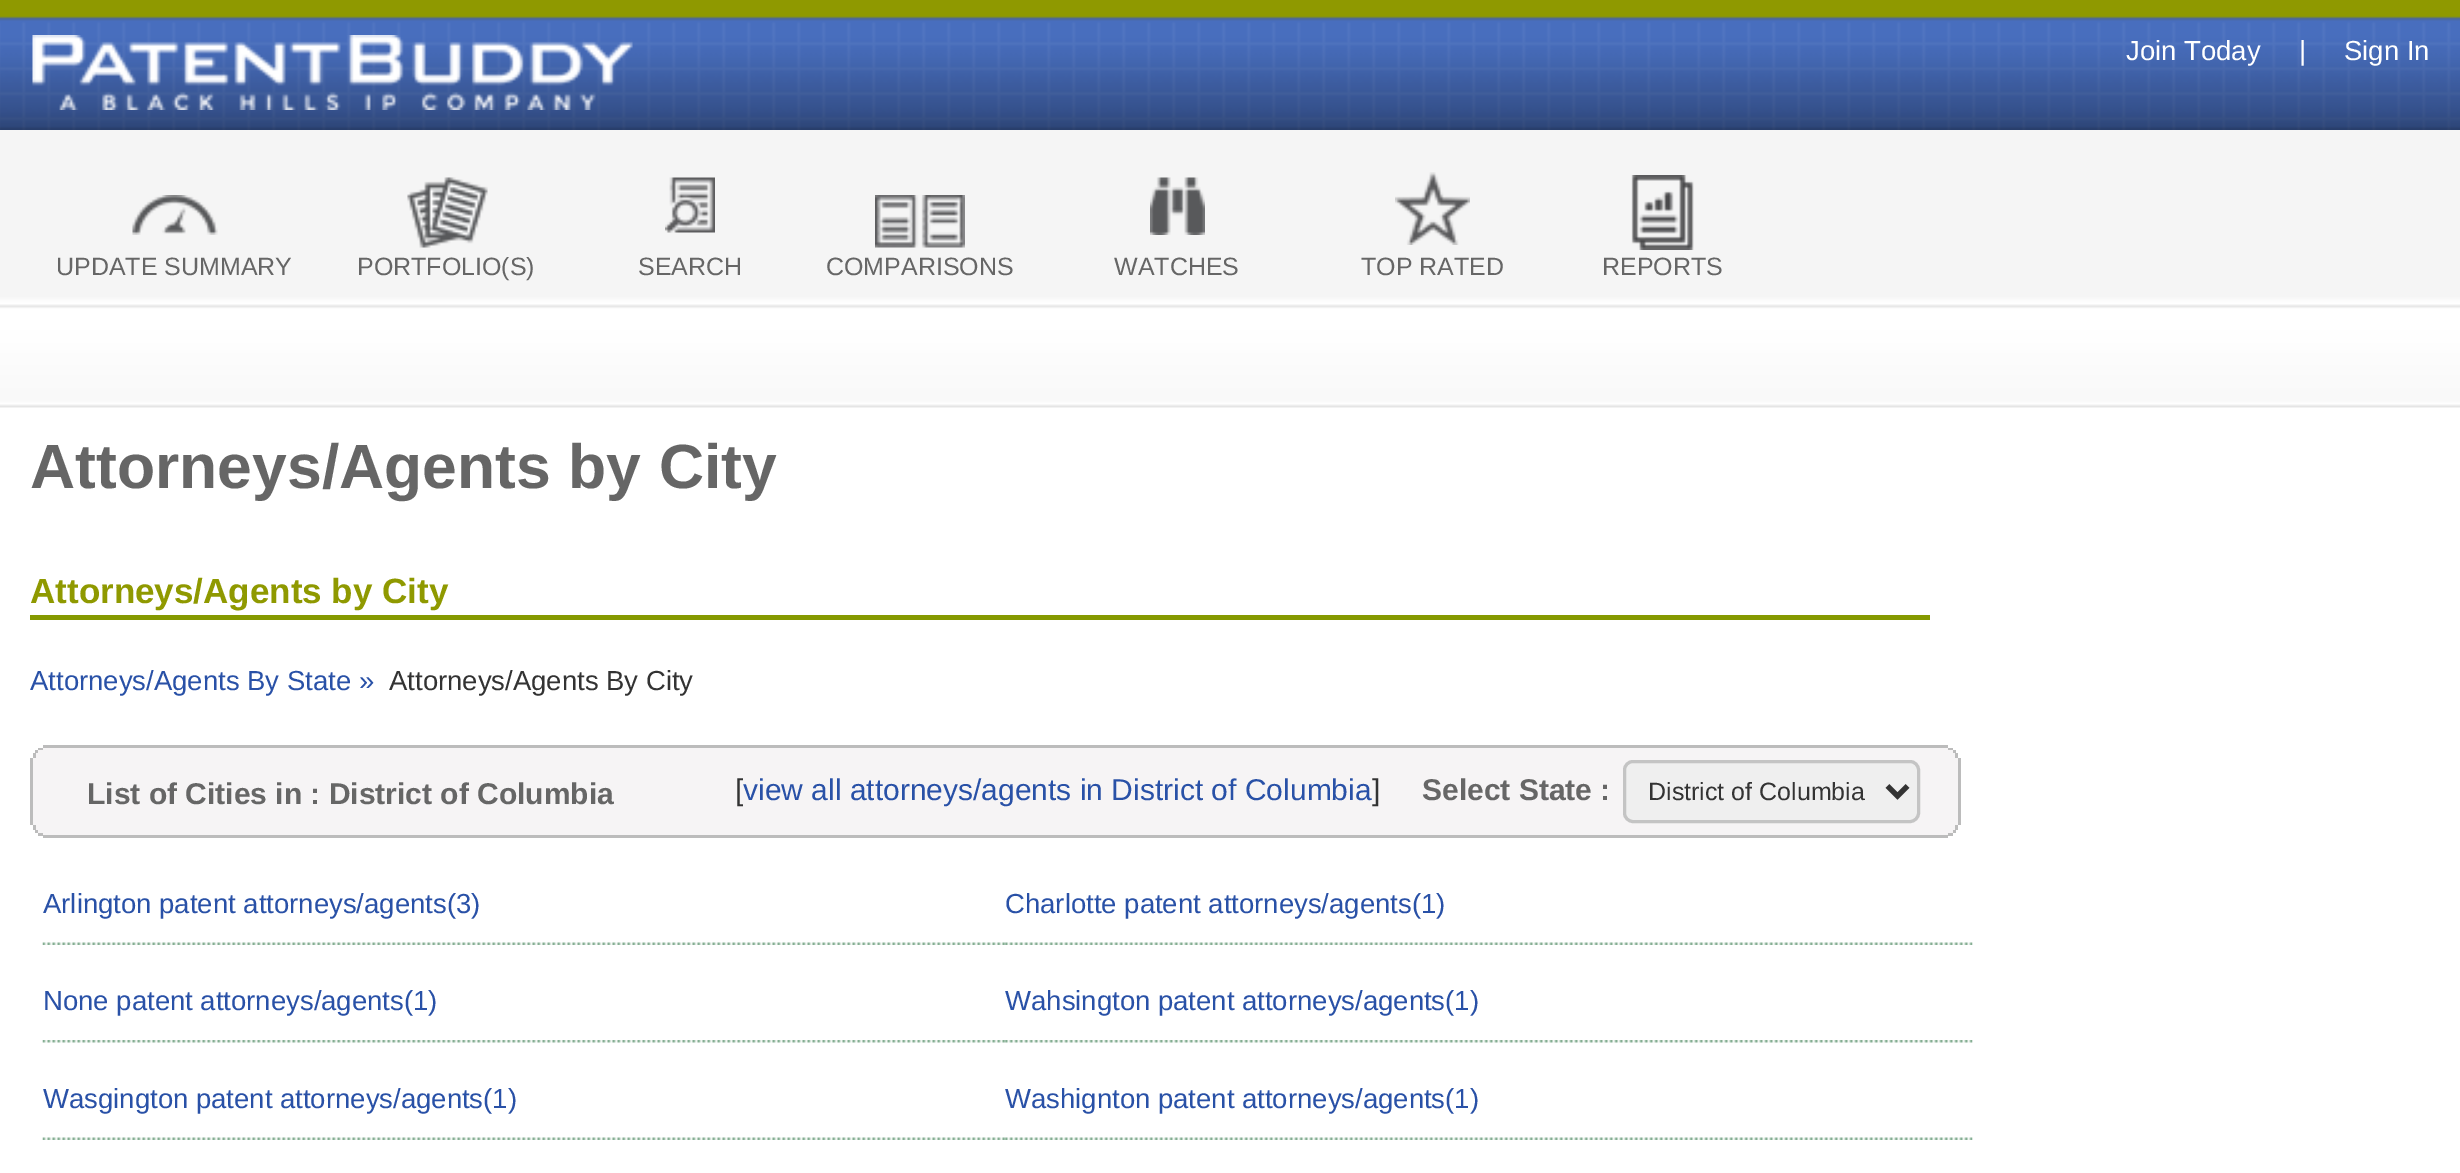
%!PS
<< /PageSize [2460 1173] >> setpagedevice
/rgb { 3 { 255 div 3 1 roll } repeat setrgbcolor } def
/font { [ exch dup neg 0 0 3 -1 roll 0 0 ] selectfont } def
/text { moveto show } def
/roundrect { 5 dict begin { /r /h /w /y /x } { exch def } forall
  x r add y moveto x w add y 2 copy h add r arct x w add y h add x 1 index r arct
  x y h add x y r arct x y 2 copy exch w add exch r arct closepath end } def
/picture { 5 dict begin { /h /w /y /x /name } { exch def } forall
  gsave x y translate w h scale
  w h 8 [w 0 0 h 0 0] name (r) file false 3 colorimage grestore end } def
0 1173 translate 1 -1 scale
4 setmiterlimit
255 255 255 rgb
0 0 2460 1173 rectfill
(img_01.rgb) 0 0 2460 408 picture
(img_02.rgb) 32 35 601 75 picture
(img_03.rgb) 132 195 86 40 picture
(img_04.rgb) 407 177 81 71 picture
(img_05.rgb) 665 177 50 56 picture
(img_06.rgb) 875 195 90 53 picture
(img_07.rgb) 1150 177 55 58 picture
(img_08.rgb) 1395 172 75 73 picture
(img_09.rgb) 1631 175 63 75 picture
133 153 0 rgb
30 615 1900 5 rectfill
188 188 188 rgb
43 745 1905 3 rectfill
246 244 245 rgb
43 748 1905 2 rectfill
188 188 188 rgb
1948 748 5 2 rectfill
38 748 5 2 rectfill
246 244 245 rgb
38 750 1915 3 rectfill
188 188 188 rgb
1953 750 3 3 rectfill
35 750 3 3 rectfill
246 244 245 rgb
35 753 1920 5 rectfill
188 188 188 rgb
1955 753 3 5 rectfill
33 753 3 5 rectfill
246 244 245 rgb
33 758 1925 67 rectfill
188 188 188 rgb
1958 758 3 67 rectfill
30 758 3 67 rectfill
239 239 239 rgb
1624.5 761.5 294 60 8.5 roundrect gsave fill grestore
196 196 196 rgb
3 setlinewidth
stroke
51 51 51 rgb
5 setlinewidth
1887.5 786 moveto 10 10 rlineto 10 -10 rlineto stroke
246 244 245 rgb
35 825 1920 5 rectfill
188 188 188 rgb
1955 825 3 5 rectfill
33 825 3 5 rectfill
246 244 245 rgb
38 830 1915 3 rectfill
188 188 188 rgb
1953 830 3 3 rectfill
35 830 3 3 rectfill
246 244 245 rgb
43 833 1905 2 rectfill
188 188 188 rgb
1948 833 5 3 rectfill
38 833 5 3 rectfill
43 835 1905 3 rectfill
(img_10.rgb) 42 942 963 3 picture
(img_11.rgb) 1005 942 968 3 picture
(img_12.rgb) 42 1040 963 3 picture
(img_13.rgb) 1005 1040 968 3 picture
(img_10.rgb) 42 1137 963 3 picture
(img_11.rgb) 1005 1137 968 3 picture
/LiberationSans-Regular 27.5 font
255 255 255 rgb
(Join Today) 2126 60 text
(|) 2299 60 text
(Sign In) 2344 60 text
/LiberationSans-Regular 25 font
102 102 102 rgb
(UPDATE SUMMARY) 56 275 text
(PORTFOLIO\(S\)) 357 275 text
(SEARCH) 638 275 text
(COMPARISONS) 826 275 text
(WATCHES) 1114 275 text
(TOP RATED) 1361 275 text
(REPORTS) 1602 275 text
/LiberationSans-Bold 62.5 font
(Attorneys/Agents by City) 30 488 text
/LiberationSans-Bold 35 font
143 153 0 rgb
(Attorneys/Agents by City) 30 603 text
/LiberationSans-Regular 27.5 font
41 81 167 rgb
(Attorneys/Agents By State ») 30 690 text
51 51 51 rgb
(Attorneys/Agents By City) 389 690 text
/LiberationSans-Bold 30 font
102 102 102 rgb
(List of Cities in : District of Columbia) 87 804 text
/LiberationSans-Regular 30 font
51 51 51 rgb
([) 735 800 text
41 81 167 rgb
(view all attorneys/agents in District of Columbia) 743 800 text
51 51 51 rgb
(]) 1372 800 text
/LiberationSans-Bold 30 font
102 102 102 rgb
(Select State :) 1422 800 text
/LiberationSans-Regular 25 font
51 51 51 rgb
(District of Columbia) 1648 800 text
/LiberationSans-Regular 27.5 font
41 81 167 rgb
(Arlington patent attorneys/agents\(3\)) 43 913 text
(Charlotte patent attorneys/agents\(1\)) 1005 913 text
(None patent attorneys/agents\(1\)) 43 1010 text
(Wahsington patent attorneys/agents\(1\)) 1005 1010 text
(Wasgington patent attorneys/agents\(1\)) 43 1108 text
(Washignton patent attorneys/agents\(1\)) 1005 1108 text
showpage
